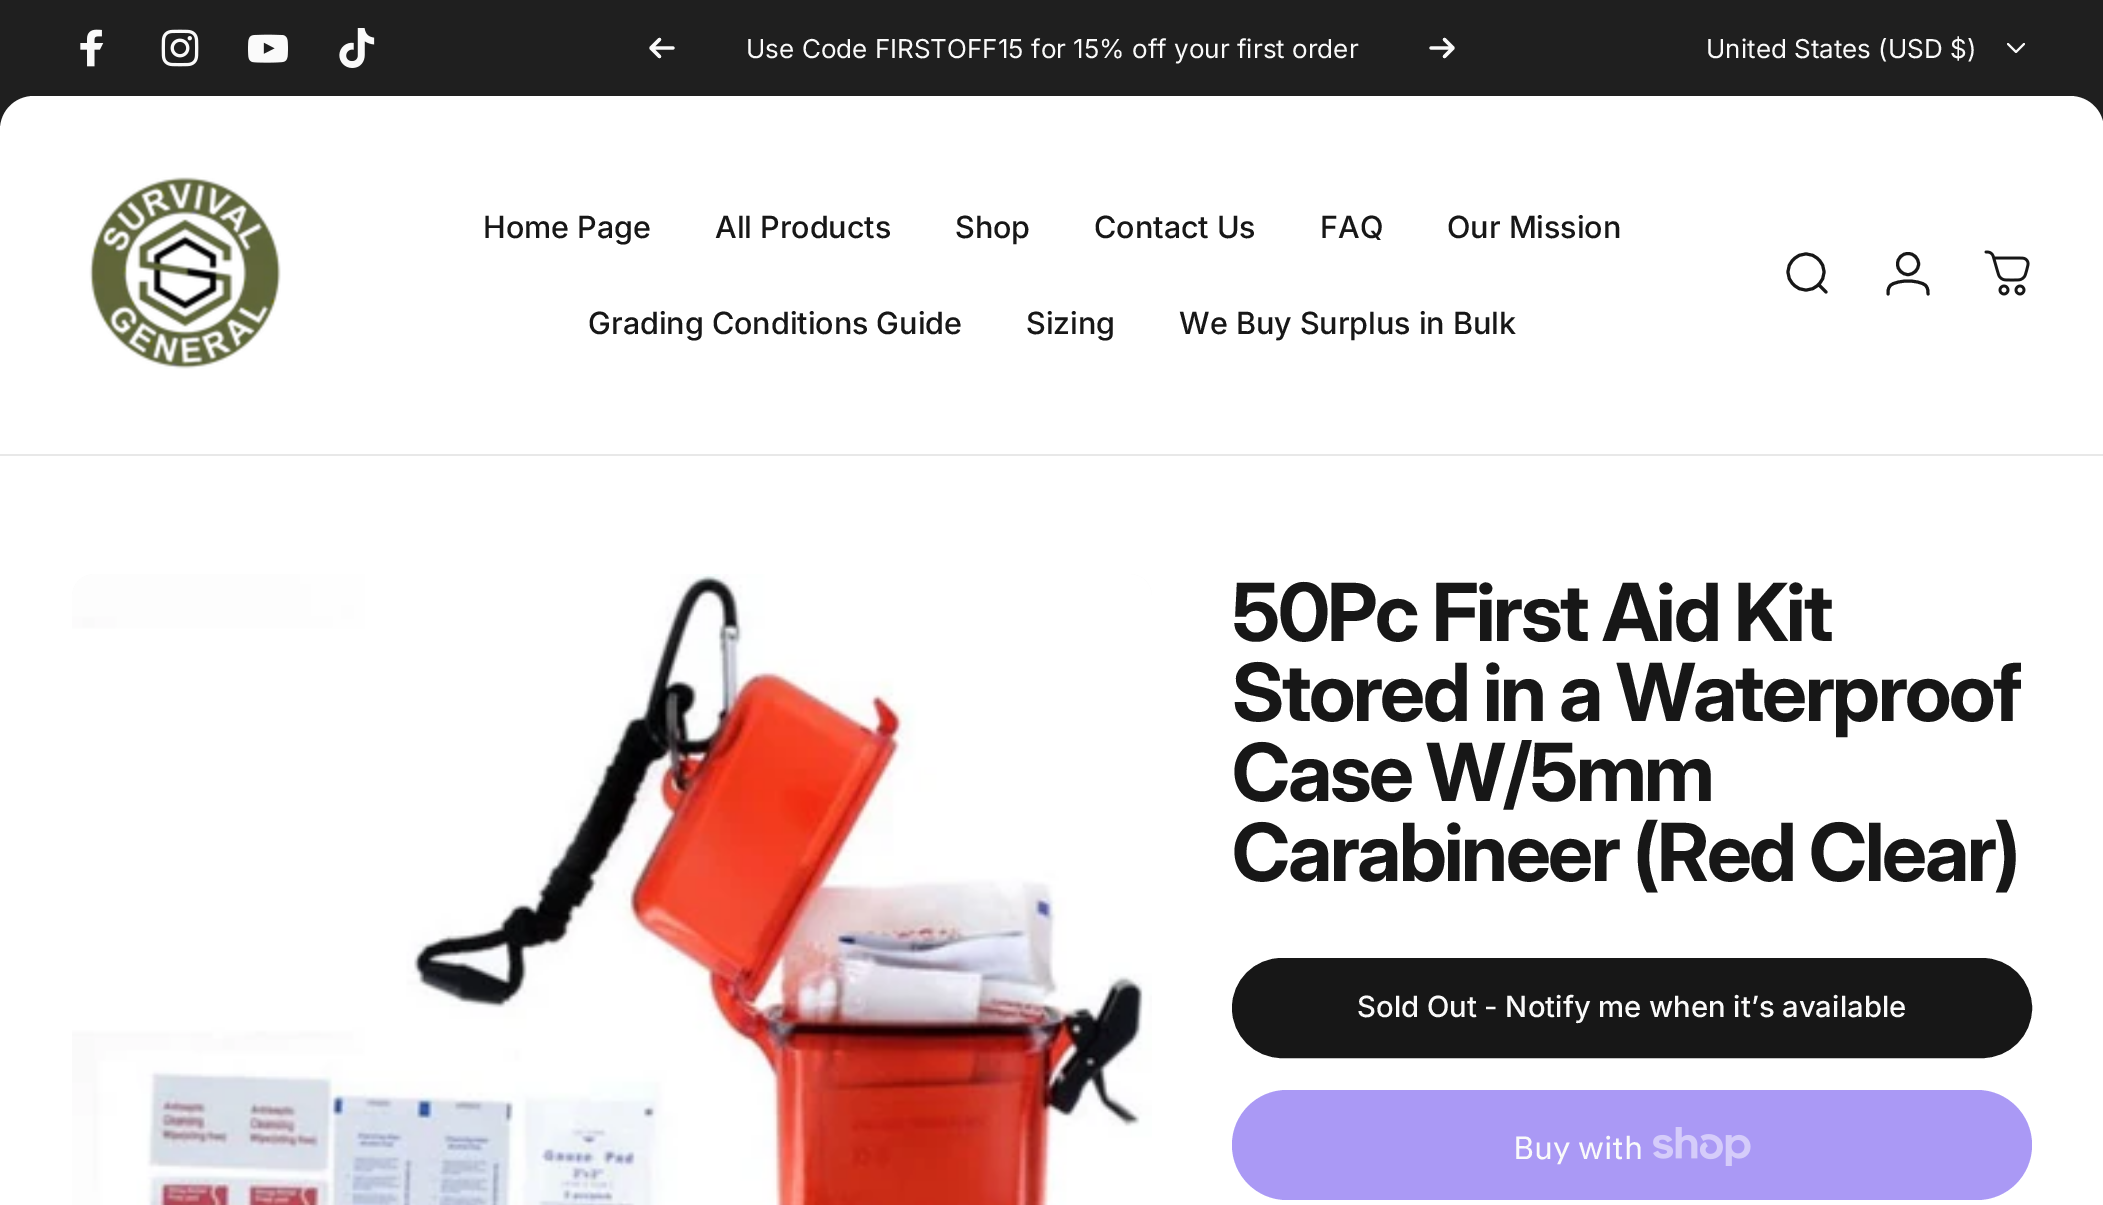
%!PS
<< /PageSize [2103 1205] >> setpagedevice
/rgb { 3 { 255 div 3 1 roll } repeat setrgbcolor } def
/font { [ exch dup neg 0 0 3 -1 roll 0 0 ] selectfont } def
/text { moveto show } def
/circle { newpath 0 360 arc closepath } def
/roundrect { 5 dict begin { /r /h /w /y /x } { exch def } forall
  x r add y moveto x w add y 2 copy h add r arct x w add y h add x 1 index r arct
  x y h add x y r arct x y 2 copy exch w add exch r arct closepath end } def
/picture { 5 dict begin { /h /w /y /x /name } { exch def } forall
  gsave x y translate w h scale
  w h 8 [w 0 0 h 0 0] name (r) file false 3 colorimage grestore end } def
0 1205 translate 1 -1 scale
4 setmiterlimit
255 255 255 rgb
0 0 2103 1205 rectfill
31 31 31 rgb
0 0 2103 34 rectfill
34 0 moveto 2036 0 rlineto 19 0 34 15 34 34 rcurveto 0 96 rlineto -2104 0 rlineto 0 -96 rlineto 0 -19 15 -34 34 -34 rcurveto closepath fill
(img_01.rgb) 80 29 24 38 picture
(img_02.rgb) 161 29 38 38 picture
(img_03.rgb) 248 34 40 29 picture
(img_04.rgb) 339 28 36 40 picture
250 250 250 rgb
3.2 setlinewidth
1 setlinecap
1 setlinejoin
659.5 39.5 moveto -8.5 8.5 rlineto 651 48 moveto 8.5 8.5 rlineto 651 48 moveto 22 0 rlineto stroke
1431 48 moveto 22 0 rlineto 1453 48 moveto -8.5 -8.5 rlineto 1453 48 moveto -8.5 8.5 rlineto stroke
2 setlinewidth
2008 44 moveto 8 8 rlineto 8 -8 rlineto stroke
255 255 255 rgb
34 96 moveto 2036 0 rlineto 19 0 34 15 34 34 rcurveto 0 324 rlineto -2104 0 rlineto 0 -324 rlineto 0 -19 15 -34 34 -34 rcurveto closepath fill
(img_05.rgb) 89 177 192 192 picture
23 23 23 rgb
3 setlinewidth
0 setlinejoin
1826 292 moveto -7.5 -7.5 rlineto 1818.5 284.5 moveto 7.5 -7 7.5 -18 0 -25 rcurveto -7 -7.5 -18 -7.5 -25 0 rcurveto -7.5 7 -7.5 18 0 25 rcurveto 7 7.5 18 7.5 25 0 rcurveto closepath stroke
0 setlinecap
1908 264 10.5 circle stroke
1 setlinecap
1908 281 moveto 4.5 0 15 1 18 5 rcurveto 2 2.5 2 5 2 8 rcurveto 1908 281 moveto -4.5 0 -15 1 -18 5 rcurveto -2 2.5 -2 5 -2 8 rcurveto stroke
(img_06.rgb) 1984 250 46 46 picture
232 232 232 rgb
0 454 2103 2 rectfill
250 250 250 rgb
72 574 1080 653 22 roundrect fill
(img_07.rgb) 72 574 1080 631 picture
23 23 23 rgb
1234 960 796 96 48 roundrect gsave fill grestore
4 setlinewidth
0 setlinecap
stroke
170 153 245 rgb
1232 1090 800 110 55 roundrect fill
(img_08.rgb) 1653 1127 98 39 picture
/Inter-Regular 26 font
250 250 250 rgb
(Use Code FIRSTOFF15 for 15% off your first order) 746 58 text
(United States \(USD $\)) 1706 58 text
/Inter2-Medium 30.6 font
23 23 23 rgb
(Home Page) 483 238 text
(All Products) 715 238 text
(Shop) 955 238 text
(Contact Us) 1094 238 text
(FAQ) 1320 238 text
(Our Mission) 1447 238 text
(Grading Conditions Guide) 588 334 text
(Sizing) 1026 334 text
(We Buy Surplus in Bulk) 1179 334 text
/Inter-Bold 80 font
1232 641 moveto -2.4 0 (50Pc First Aid Kit) ashow
1232 721 moveto -2.4 0 (Stored in a Waterproof) ashow
1232 801 moveto -2.4 0 (Case W/5mm) ashow
1232 881 moveto -2.4 0 (Carabineer \(Red Clear\)) ashow
/Inter-Medium 29.3 font
250 250 250 rgb
1357 1017 moveto -0.25 0 32 (Sold Out - Notify me when it’s available) widthshow
/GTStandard-Regular 32 font
(Buy with) 1513 1159 text
showpage
